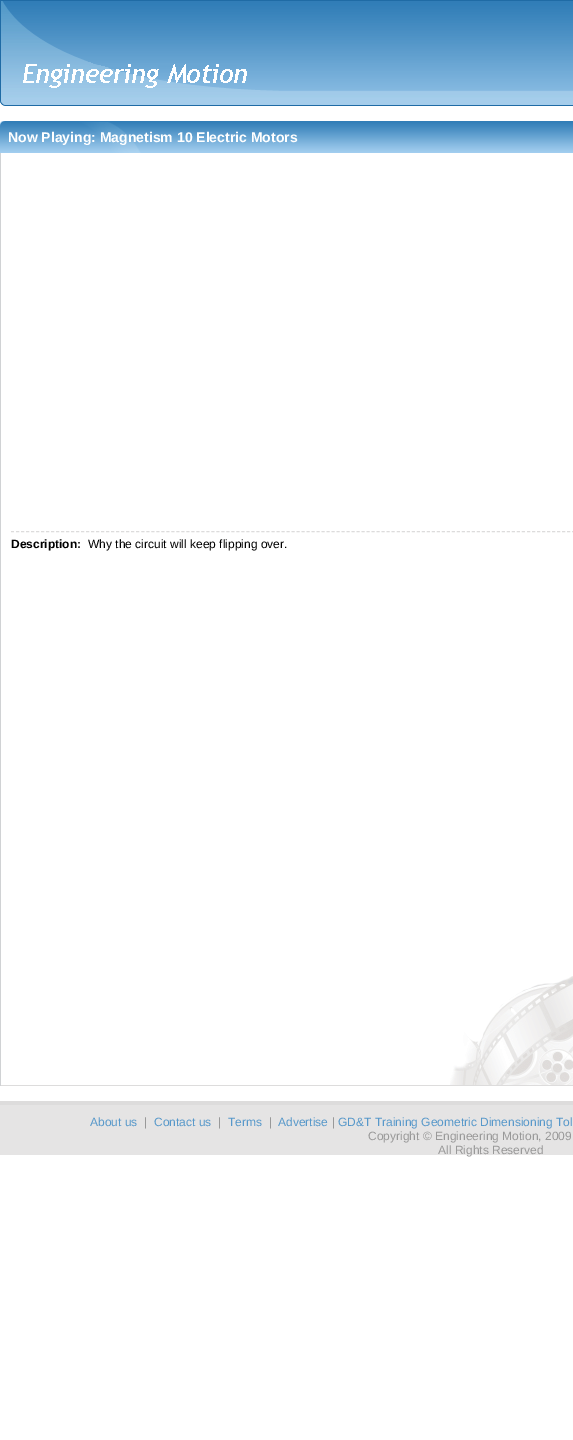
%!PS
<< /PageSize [573 1440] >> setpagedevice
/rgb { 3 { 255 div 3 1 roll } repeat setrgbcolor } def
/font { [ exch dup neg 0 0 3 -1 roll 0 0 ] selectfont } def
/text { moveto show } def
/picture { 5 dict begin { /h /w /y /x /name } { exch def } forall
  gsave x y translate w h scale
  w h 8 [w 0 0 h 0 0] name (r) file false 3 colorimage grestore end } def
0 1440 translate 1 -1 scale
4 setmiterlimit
255 255 255 rgb
0 0 573 1440 rectfill
(img_01.rgb) 0 0 290 100 picture
(img_02.rgb) 23 61 224 27 picture
(img_03.rgb) 290 0 283 100 picture
(img_04.rgb) 0 100 573 6 picture
(img_05.rgb) 0 121 573 32 picture
(img_06.rgb) 450 976 123 109 picture
221 220 220 rgb
0 1085 573 1 rectfill
208 210 212 rgb
0 153 1 933 rectfill
221 220 220 rgb
[3 2.01] 0 setdash
11 531.5 moveto 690 0 rlineto stroke
229 228 228 rgb
0 1105 573 50 rectfill
221 220 220 rgb
0 1101 573 4 rectfill
/LiberationSans-Bold 14 font
255 255 255 rgb
(Now Playing: Magnetism 10 Electric Motors) 8 142 text
/LiberationSans-Bold 12 font
0 0 0 rgb
(Description:) 11 548 text
/LiberationSans-Regular 12 font
(Why the circuit will keep flipping over.) 88 548 text
87 152 202 rgb
(About us) 90 1126 text
153 153 153 rgb
(|) 144 1126 text
87 152 202 rgb
(Contact us) 154 1126 text
153 153 153 rgb
(|) 218 1126 text
87 152 202 rgb
(Terms) 228 1126 text
153 153 153 rgb
(|) 269 1126 text
87 152 202 rgb
(Advertise) 278 1126 text
153 153 153 rgb
(|) 332 1126 text
87 152 202 rgb
(GD&T Training Geometric Dimensioning Tol) 338 1126 text
153 153 153 rgb
(Copyright © Engineering Motion, 2009) 368 1140 text
(All Rights Reserved) 438 1154 text
showpage
